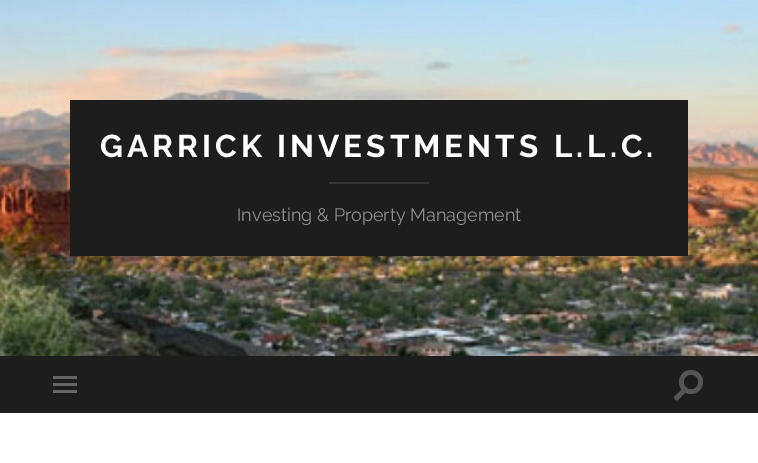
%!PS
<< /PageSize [758 463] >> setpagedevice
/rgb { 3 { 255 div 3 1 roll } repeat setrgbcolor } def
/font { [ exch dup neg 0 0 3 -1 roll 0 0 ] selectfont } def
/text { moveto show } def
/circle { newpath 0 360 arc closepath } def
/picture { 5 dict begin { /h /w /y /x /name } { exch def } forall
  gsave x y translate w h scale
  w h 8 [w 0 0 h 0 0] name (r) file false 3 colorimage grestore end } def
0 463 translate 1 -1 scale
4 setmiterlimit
255 255 255 rgb
0 0 758 463 rectfill
(img_01.rgb) 0 0 758 356 picture
29 29 29 rgb
70 100 618 156 rectfill
52 52 52 rgb
329 182 100 2 rectfill
29 29 29 rgb
0 356 758 57 rectfill
102 102 102 rgb
53 376 24 3 rectfill
53 383 24 3 rectfill
53 390 24 3 rectfill
85 85 85 rgb
691 382 12 circle fill
29 29 29 rgb
691 382 7 circle fill
85 85 85 rgb
674.5 396.5 moveto 8.5 -8.5 rlineto 3.5 3.5 rlineto -5.5 5.5 rlineto -2 2 -4 5.5 -6.5 2 rcurveto -0.5 -1 -0.5 -2 0 -2.5 rcurveto closepath fill
/Raleway-Thin 31.5 font
255 255 255 rgb
100 157 moveto 4 0 (GARRICK INVESTMENTS L.L.C.) ashow
/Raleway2-Thin 18 font
142 142 142 rgb
(Investing & Property Management) 237 221 text
showpage
